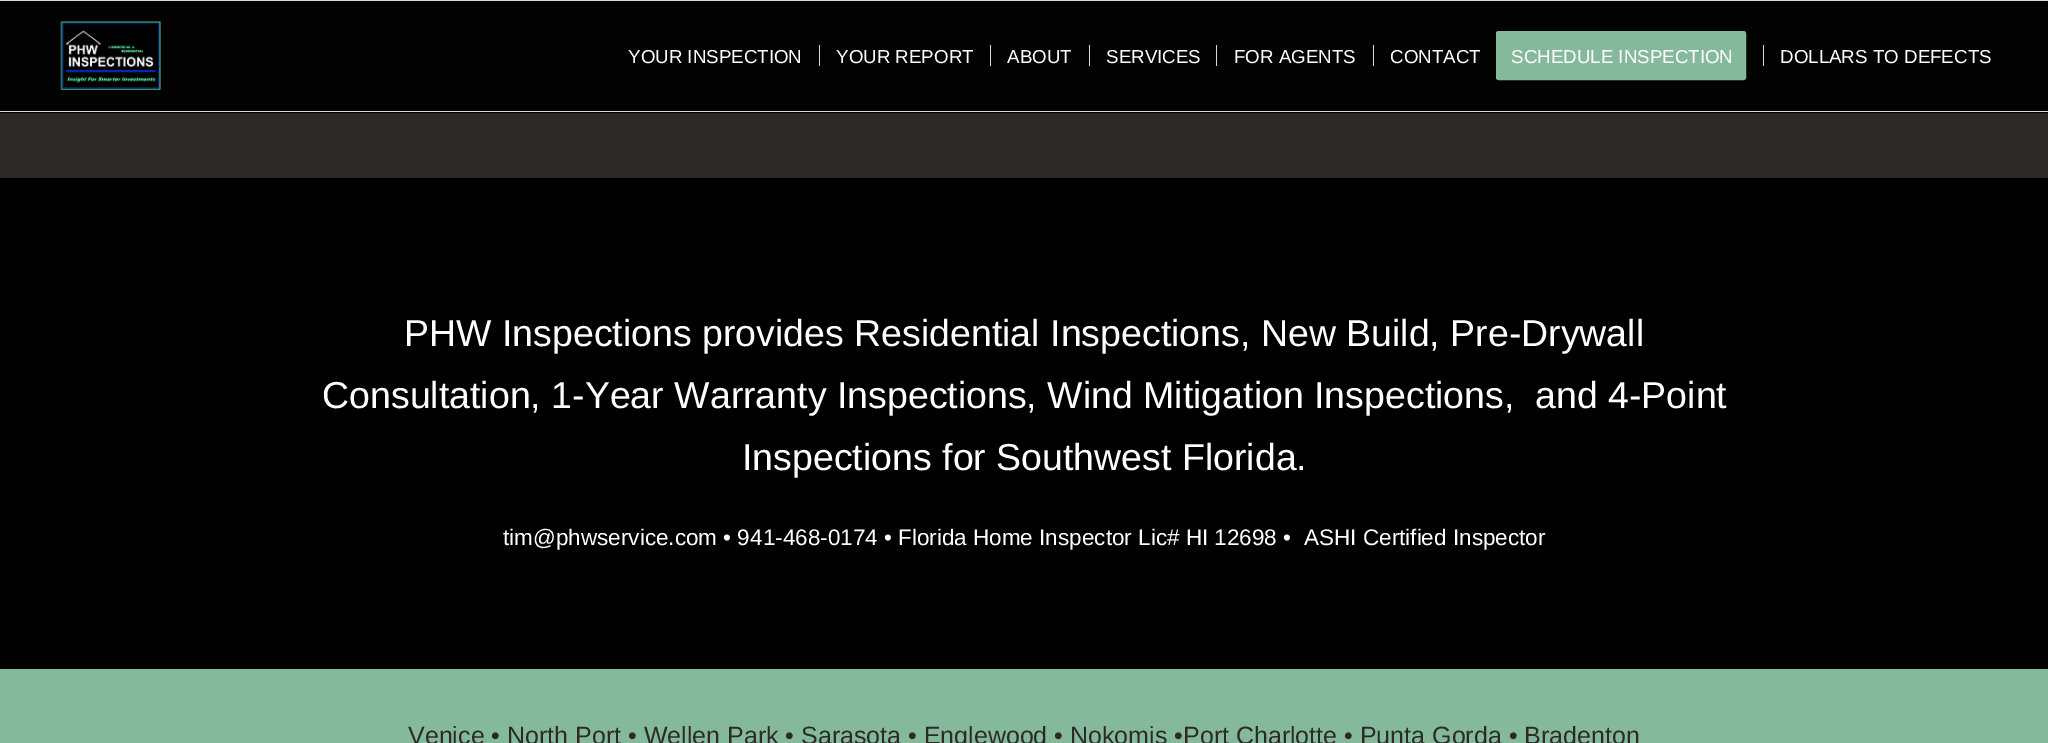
%!PS
<< /PageSize [2048 743] /PageUsesTransparency true >> setpagedevice
/rgb { 3 { 255 div 3 1 roll } repeat setrgbcolor } def
/font { [ exch dup neg 0 0 3 -1 roll 0 0 ] selectfont } def
/text { moveto show } def
/alpha { dup .setfillconstantalpha .setstrokeconstantalpha } def
/roundrect { 5 dict begin { /r /h /w /y /x } { exch def } forall
  x r add y moveto x w add y 2 copy h add r arct x w add y h add x 1 index r arct
  x y h add x y r arct x y 2 copy exch w add exch r arct closepath end } def
/picture { 5 dict begin { /h /w /y /x /name } { exch def } forall
  gsave x y translate w h scale
  w h 8 [w 0 0 h 0 0] name (r) file false 3 colorimage grestore end } def
0 .pushpdf14devicefilter
0 743 translate 1 -1 scale
4 setmiterlimit
0 0 0 rgb
0 0 2048 743 rectfill
44 42 40 rgb
0 1 2048 177 rectfill
0.95 alpha
0 0 0 rgb
0 1 2048 112 rectfill
1 alpha
204 224 211 rgb
0 0 2048 1 rectfill
0 111 2048 1 rectfill
(img_01.rgb) 60 21 101 69 picture
819 45 1 21 rectfill
990 45 1 21 rectfill
1089 45 1 21 rectfill
1216 45 1 21 rectfill
1373 45 1 21 rectfill
133 185 156 rgb
1497.5 32.5 247 46 1 roundrect gsave fill grestore
3 setlinewidth
stroke
204 224 211 rgb
1763 45 1 21 rectfill
133 185 156 rgb
0 669 2048 74 rectfill
/LiberationSans-Regular 18.75 font
255 255 255 rgb
(YOUR INSPECTION) 628 63 text
(YOUR REPORT) 836 63 text
(ABOUT) 1007 63 text
(SERVICES) 1106 63 text
(FOR AGENTS) 1234 63 text
(CONTACT) 1390 63 text
(SCHEDULE INSPECTION) 1511 63 text
(DOLLARS TO DEFECTS) 1780 63 text
/LiberationSans-Regular 37.5 font
(PHW Inspections provides Residential Inspections, New Build, Pre-Drywall) 404 346 text
(Consultation, 1-Year Warranty Inspections, Wind Mitigation Inspections,  and 4-Point) 322 408 text
(Inspections for Southwest Florida.) 742 470 text
/LiberationSans-Regular 22.5 font
(tim@phwservice.com • 941-468-0174 • Florida Home Inspector Lic# HI 12698 •) 503 545 text
(ASHI Certified Inspector) 1304 545 text
/LiberationSans-Regular 25 font
44 42 40 rgb
(Venice • North Port • Wellen Park • Sarasota • Englewood • Nokomis •Port Charlotte • Punta Gorda • Bradenton) 408 744 text
.poppdf14devicefilter showpage
